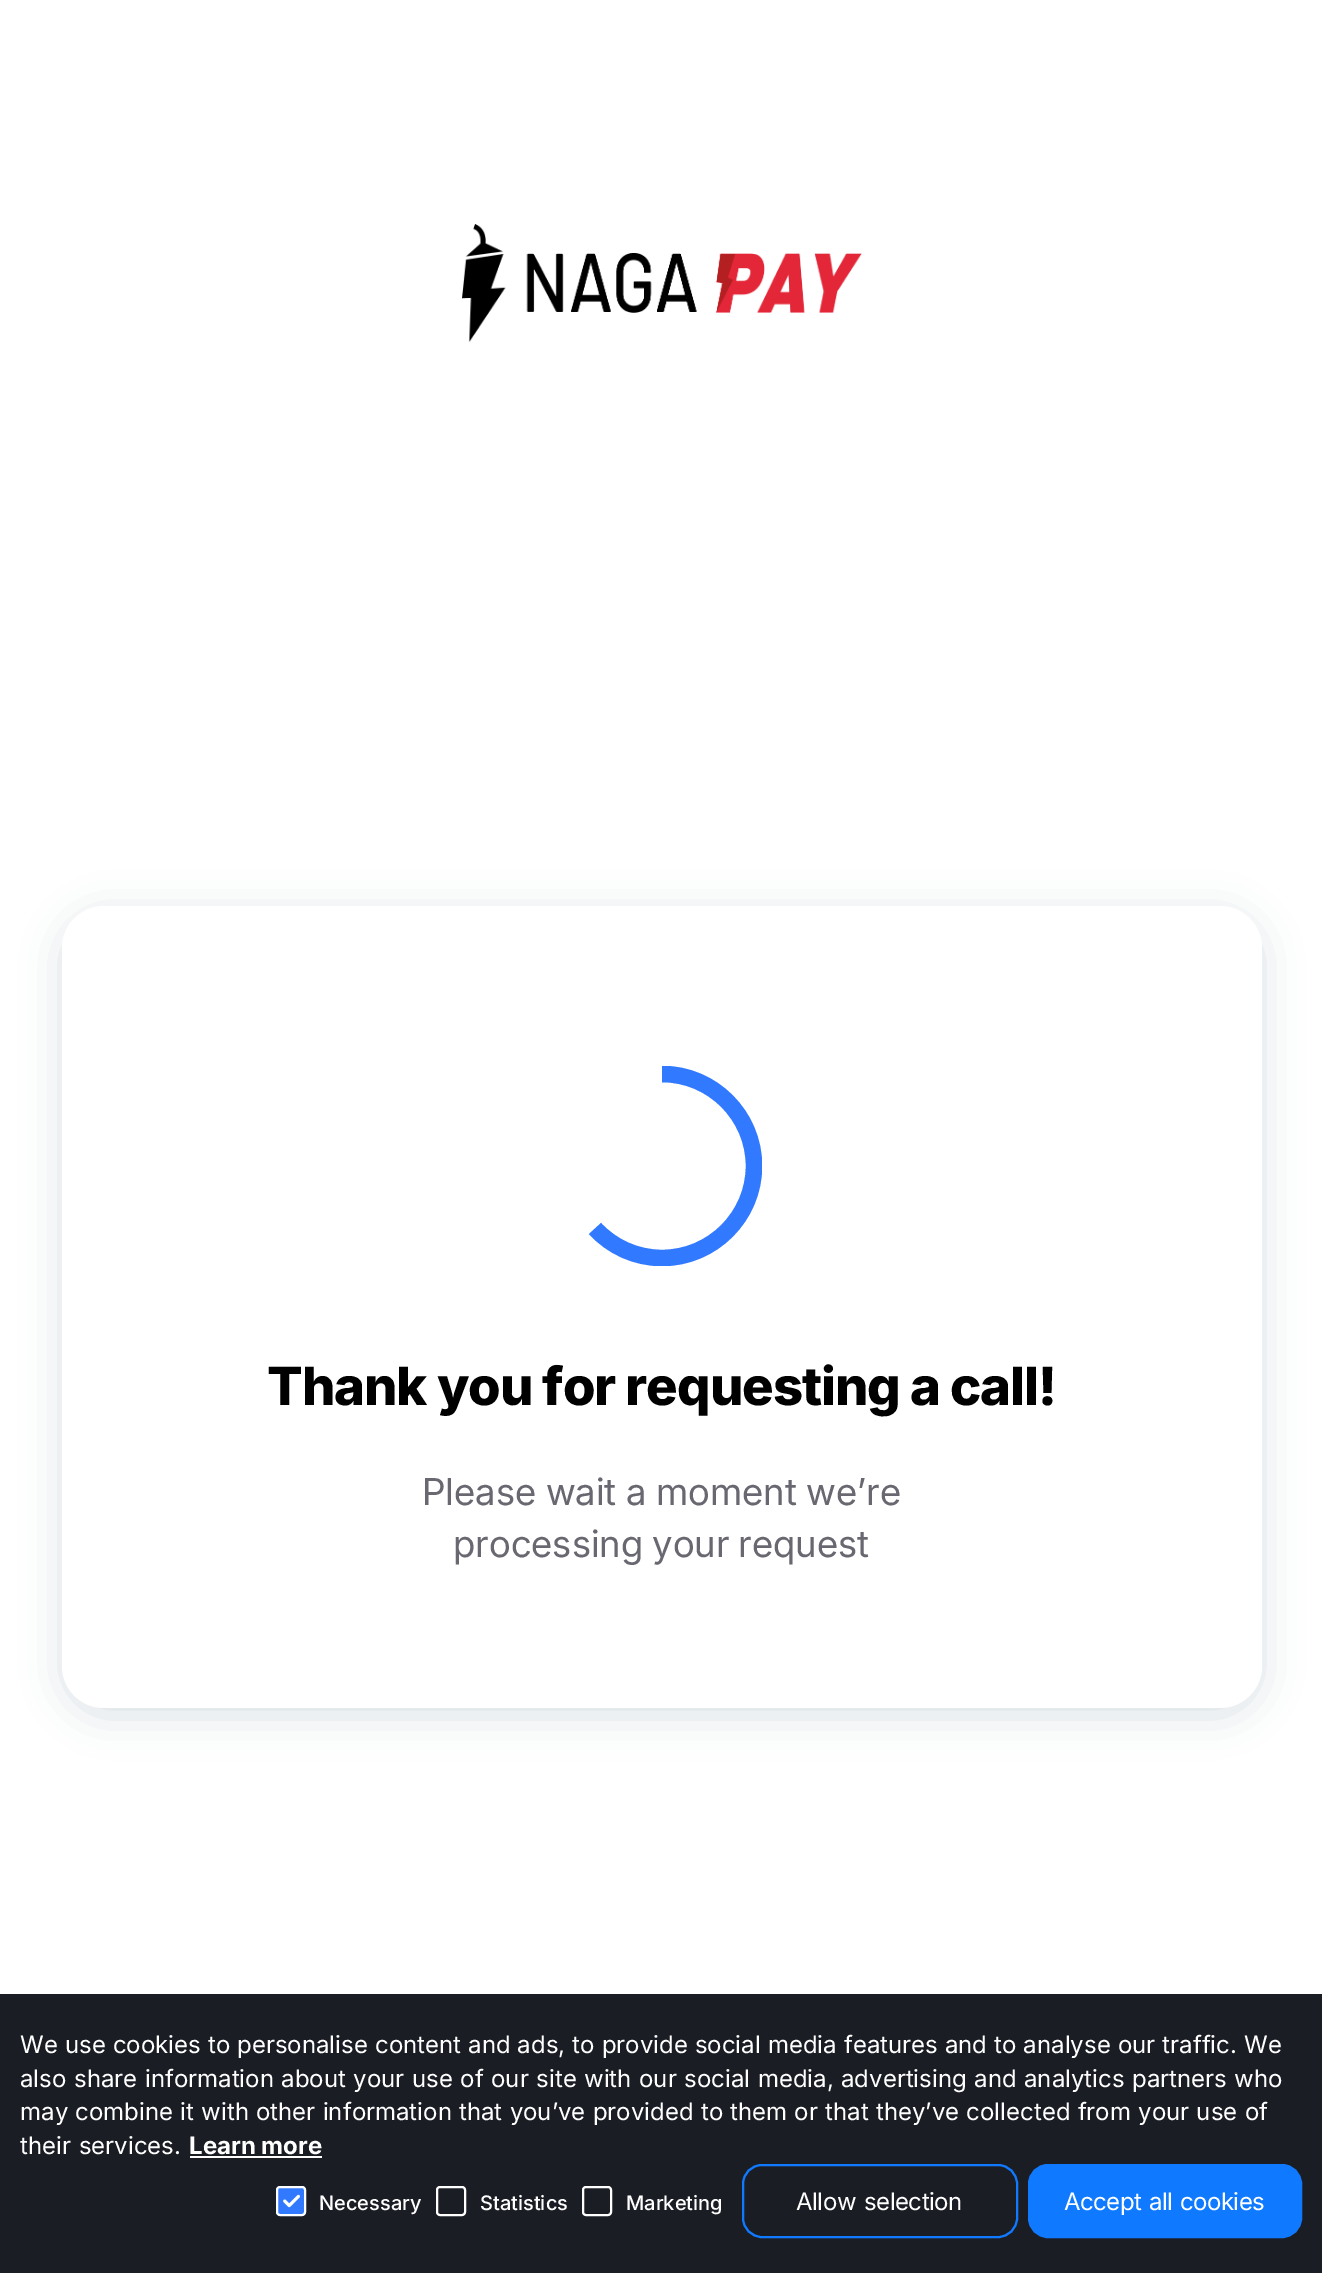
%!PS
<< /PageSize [1322 2273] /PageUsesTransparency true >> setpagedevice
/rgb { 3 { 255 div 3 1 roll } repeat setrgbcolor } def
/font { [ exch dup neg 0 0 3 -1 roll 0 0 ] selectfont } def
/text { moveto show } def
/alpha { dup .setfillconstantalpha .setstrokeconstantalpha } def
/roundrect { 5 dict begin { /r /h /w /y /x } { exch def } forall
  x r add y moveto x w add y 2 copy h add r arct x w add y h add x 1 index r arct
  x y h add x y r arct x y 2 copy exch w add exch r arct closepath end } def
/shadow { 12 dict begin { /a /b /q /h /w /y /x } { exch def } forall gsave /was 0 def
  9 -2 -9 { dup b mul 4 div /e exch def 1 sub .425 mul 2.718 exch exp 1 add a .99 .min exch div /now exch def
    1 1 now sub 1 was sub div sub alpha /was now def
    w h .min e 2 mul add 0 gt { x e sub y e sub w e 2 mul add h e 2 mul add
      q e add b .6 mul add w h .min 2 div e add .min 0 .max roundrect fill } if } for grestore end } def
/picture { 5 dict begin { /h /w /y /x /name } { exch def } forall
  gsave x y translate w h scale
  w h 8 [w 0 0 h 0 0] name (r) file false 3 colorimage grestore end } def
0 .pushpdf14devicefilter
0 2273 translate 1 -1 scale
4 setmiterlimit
255 255 255 rgb
0 0 1322 2273 rectfill
(img_01.rgb) 462 224 400 118 picture
109 132 154 rgb
62 914 1200 802 42 20 0.25 shadow
255 255 255 rgb
62 906 1200 802 42 roundrect fill
gsave
562 1066 200 200 rectclip
49 121 255 rgb
16.4 setlinewidth
662 1074 moveto 50.5 0 92 41.5 92 92 rcurveto 0 50.5 -41.5 92 -92 92 rcurveto -26.5 0 -50.5 -11.5 -67 -29.5 rcurveto stroke
grestore
27 29 37 rgb
0 1994 1322 279 rectfill
255 255 255 rgb
190 2156 132 2 rectfill
(img_02.rgb) 276 2186 30 30 picture
2 setlinewidth
277 2187 28 28 3 roundrect stroke
437 2187 28 28 3 roundrect stroke
583 2187 28 28 3 roundrect stroke
15 122 255 rgb
743 2165 274 72 19 roundrect stroke
1029 2165 272 72 19 roundrect gsave fill grestore
stroke
/Inter-ExtraBold 52.7 font
0 0 0 rgb
267 1405 moveto -0.5 0 32 -1.05 0 (Thank you for requesting a call!) awidthshow
/Inter-Regular 37.1 font
105 104 113 rgb
422 1505 moveto -0.5 0 32 (Please wait a moment we’re) widthshow
453 1557 moveto -1 0 32 (processing your request) widthshow
/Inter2-Regular 24 font
255 255 255 rgb
20 2053 moveto 0.3 0 32 (We use cookies to personalise content and ads, to provide social media features and to analyse our traffic. We) widthshow
20 2087 moveto 0.75 0 32 (also share information about your use of our site with our social media, advertising and analytics partners who) widthshow
20 2120 moveto 0.5 0 32 (may combine it with other information that you’ve provided to them or that they’ve collected from your use of) widthshow
20 2154 moveto 1 0 32 (their services.) widthshow
/Inter-Bold 24 font
(Learn more) 189 2154 text
/Inter-Medium 20 font
(Necessary) 319 2210 text
(Statistics) 480 2210 text
(Marketing) 626 2210 text
/Inter2-Regular 24 font
796 2210 moveto 2 0 32 -0.5 0 (Allow selection) awidthshow
1064 2210 moveto 1 0 32 -0.5 0 (Accept all cookies) awidthshow
.poppdf14devicefilter showpage
